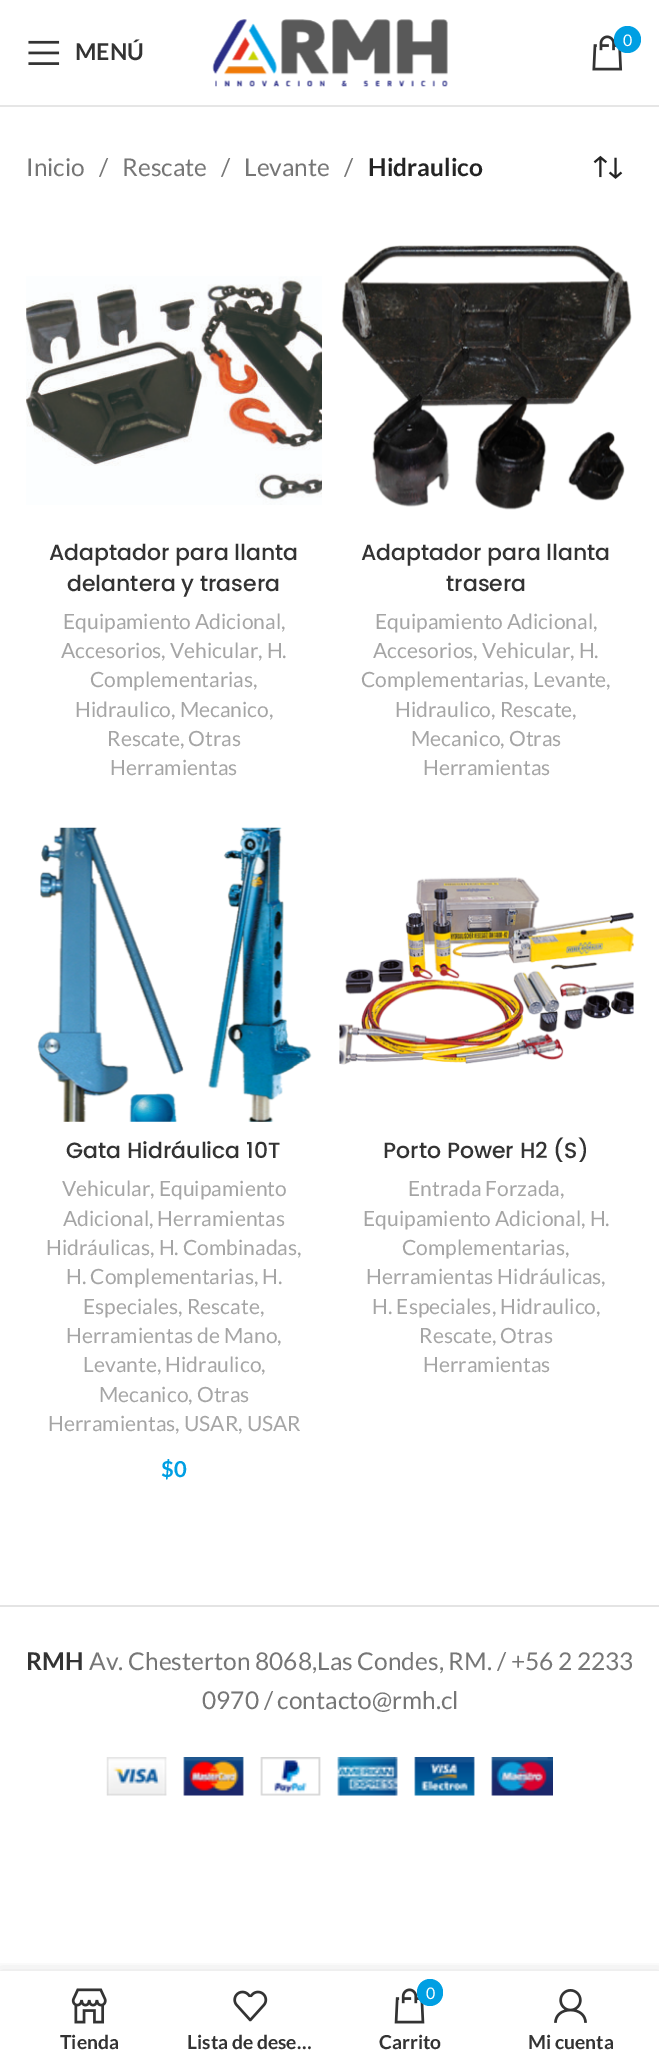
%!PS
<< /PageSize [659 2066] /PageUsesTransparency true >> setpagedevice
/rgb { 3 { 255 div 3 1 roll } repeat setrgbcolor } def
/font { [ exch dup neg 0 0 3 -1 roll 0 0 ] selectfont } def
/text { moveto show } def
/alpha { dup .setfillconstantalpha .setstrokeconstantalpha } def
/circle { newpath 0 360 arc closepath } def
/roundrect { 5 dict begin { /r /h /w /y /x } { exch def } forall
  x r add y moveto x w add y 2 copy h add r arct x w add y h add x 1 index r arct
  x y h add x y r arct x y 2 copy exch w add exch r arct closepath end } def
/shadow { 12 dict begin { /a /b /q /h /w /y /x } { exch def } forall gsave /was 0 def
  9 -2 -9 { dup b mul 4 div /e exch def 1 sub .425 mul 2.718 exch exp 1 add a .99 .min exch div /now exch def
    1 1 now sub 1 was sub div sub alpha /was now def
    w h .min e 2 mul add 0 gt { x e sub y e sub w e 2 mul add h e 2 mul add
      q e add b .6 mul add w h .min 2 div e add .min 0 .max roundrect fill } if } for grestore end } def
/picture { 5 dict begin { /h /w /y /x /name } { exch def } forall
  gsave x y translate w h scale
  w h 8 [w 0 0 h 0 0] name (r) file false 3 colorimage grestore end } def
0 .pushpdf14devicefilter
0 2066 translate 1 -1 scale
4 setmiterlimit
255 255 255 rgb
0 0 659 2066 rectfill
230 230 230 rgb
0 105 659 2 rectfill
(img_01.rgb) 28 40 32 25 picture
(img_02.rgb) 212 19 236 68 picture
(img_03.rgb) 592 35 31 36 picture
0 159 227 rgb
627.5 39.5 13.5 circle fill
(img_04.rgb) 593 155 30 24 picture
(img_05.rgb) 26 276 296 229 picture
(img_06.rgb) 341 245 291 265 picture
(img_07.rgb) 37 827 275 295 picture
(img_08.rgb) 339 877 295 188 picture
228 228 228 rgb
0 1605 659 2 rectfill
(img_09.rgb) 106 1757 447 39 picture
gsave
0 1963 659 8 rectclip
0 0 0 rgb
0 1971 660 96 0 8 0.12 shadow
grestore
(img_10.rgb) 71 1988 36 36 picture
(img_11.rgb) 233 1990 35 32 picture
(img_12.rgb) 394 1988 31 36 picture
0 159 227 rgb
417 1979 26 27 13 roundrect fill
(img_13.rgb) 554 1989 33 34 picture
/Lato-Bold 23 font
51 51 51 rgb
(MENÚ) 75 60 text
/Lato-Regular 16 font
255 255 255 rgb
(0) 623 46 text
/Lato-Regular 24.5 font
118 118 118 rgb
(Inicio) 26 176 text
(/) 99 176 text
(Rescate) 122 176 text
(/) 221 176 text
(Levante) 244 176 text
(/) 344 176 text
/Lato-Bold 24.5 font
36 36 36 rgb
(Hidraulico) 368 176 text
/Poppins-Medium 22 font
51 51 51 rgb
(Adaptador para llanta) 49 560 text
(delantera y trasera) 67 591 text
/Lato-Regular 21 font
165 165 165 rgb
(Equipamiento Adicional,) 63 629 text
(Accesorios, Vehicular, H.) 61 658 text
(Complementarias,) 90 687 text
(Hidraulico, Mecanico,) 75 717 text
(Rescate, Otras) 107 746 text
(Herramientas) 110 775 text
/Poppins-Medium 22 font
51 51 51 rgb
(Adaptador para llanta) 361 560 text
(trasera) 446 591 text
/Lato-Regular 21 font
165 165 165 rgb
(Equipamiento Adicional,) 375 629 text
(Accesorios, Vehicular, H.) 373 658 text
(Complementarias, Levante,) 361 687 text
(Hidraulico, Rescate,) 395 717 text
(Mecanico, Otras) 411 746 text
(Herramientas) 423 775 text
/Poppins-Medium 22 font
51 51 51 rgb
(Gata Hidráulica 10T) 66 1158 text
/Lato-Regular 21 font
165 165 165 rgb
(Vehicular, Equipamiento) 62 1196 text
(Adicional, Herramientas) 63 1226 text
(Hidráulicas, H. Combinadas,) 46 1255 text
(H. Complementarias, H.) 66 1284 text
(Especiales, Rescate,) 83 1314 text
(Herramientas de Mano,) 66 1343 text
(Levante, Hidraulico,) 83 1372 text
(Mecanico, Otras) 99 1402 text
(Herramientas, USAR, USAR) 48 1431 text
/Lato-Bold 22 font
0 159 227 rgb
($0) 161 1477 text
/Poppins-Medium 22 font
51 51 51 rgb
(Porto Power H2 \(S\)) 383 1158 text
/Lato-Regular 21 font
165 165 165 rgb
(Entrada Forzada,) 408 1196 text
(Equipamiento Adicional, H.) 363 1226 text
(Complementarias,) 402 1255 text
(Herramientas Hidráulicas,) 366 1284 text
(H. Especiales, Hidraulico,) 372 1314 text
(Rescate, Otras) 419 1343 text
(Herramientas) 423 1372 text
/Lato-Bold 24.5 font
51 51 51 rgb
(RMH) 26 1670 text
/Lato-Regular 24.5 font
118 118 118 rgb
(Av. Chesterton 8068,Las Condes, RM. / +56 2 2233) 89 1670 text
(0970 / contacto@rmh.cl) 202 1709 text
/Lato-Bold 19.25 font
51 51 51 rgb
(Tienda) 60 2049 text
(Lista de dese…) 187 2049 text
/Lato-Regular 16 font
255 255 255 rgb
(0) 426 1999 text
/Lato-Bold 19.25 font
51 51 51 rgb
(Carrito) 379 2049 text
(Mi cuenta) 528 2049 text
.poppdf14devicefilter showpage
